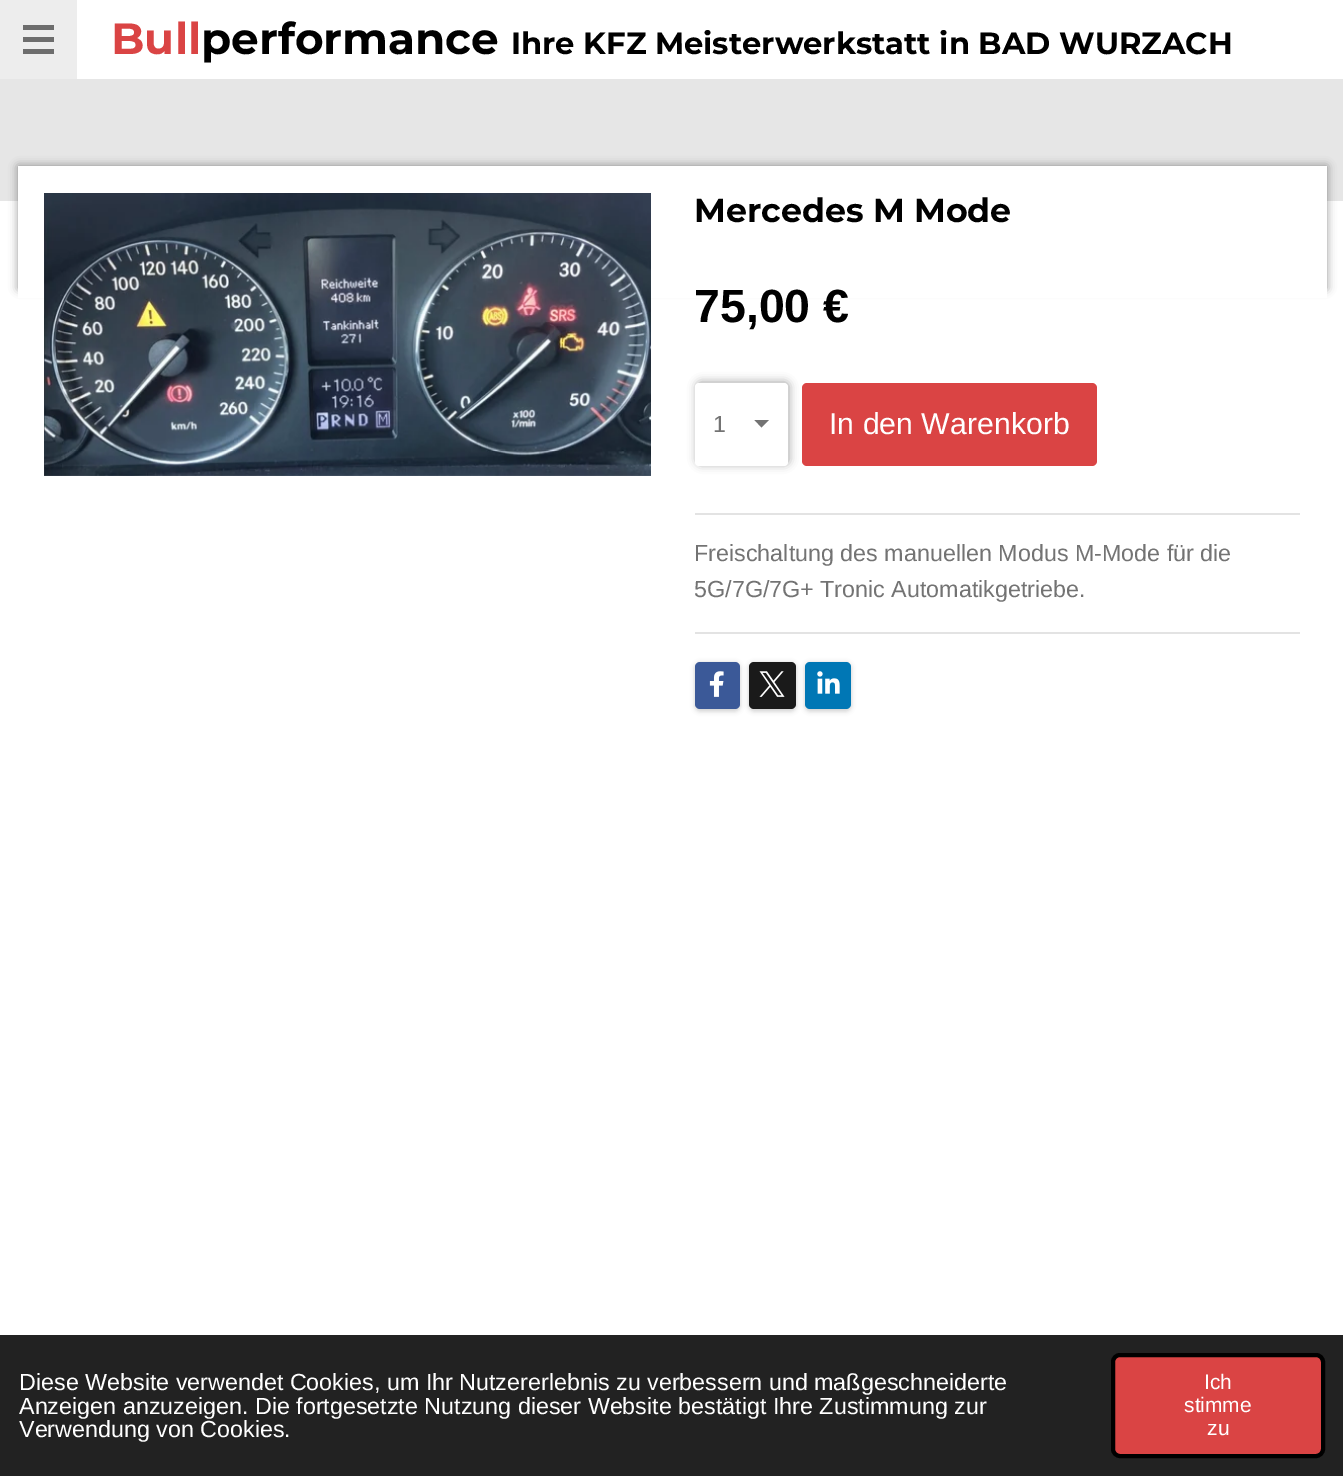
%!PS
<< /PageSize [1343 1476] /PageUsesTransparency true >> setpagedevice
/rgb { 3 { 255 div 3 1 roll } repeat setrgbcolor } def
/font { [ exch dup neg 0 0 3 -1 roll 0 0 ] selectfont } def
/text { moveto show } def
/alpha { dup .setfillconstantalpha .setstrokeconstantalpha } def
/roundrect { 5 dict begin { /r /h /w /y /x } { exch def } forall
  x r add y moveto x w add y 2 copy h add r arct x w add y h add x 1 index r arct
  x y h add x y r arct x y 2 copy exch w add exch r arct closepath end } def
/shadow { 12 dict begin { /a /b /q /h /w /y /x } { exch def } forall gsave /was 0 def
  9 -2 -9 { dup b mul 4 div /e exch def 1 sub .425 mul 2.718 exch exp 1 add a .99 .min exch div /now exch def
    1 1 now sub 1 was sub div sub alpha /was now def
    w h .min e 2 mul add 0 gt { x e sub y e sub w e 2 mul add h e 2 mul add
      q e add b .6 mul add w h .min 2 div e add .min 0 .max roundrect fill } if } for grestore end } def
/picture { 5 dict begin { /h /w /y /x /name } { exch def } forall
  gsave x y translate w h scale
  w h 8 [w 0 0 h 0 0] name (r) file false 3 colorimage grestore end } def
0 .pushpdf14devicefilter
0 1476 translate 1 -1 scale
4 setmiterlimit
255 255 255 rgb
0 0 1343 1476 rectfill
237 237 237 rgb
0 0 77 79 rectfill
109 109 109 rgb
23 37 31 5 rectfill
23 25 31 5 rectfill
23 49 31 5 rectfill
230 230 230 rgb
0 79 1343 122 rectfill
0 0 0 rgb
18 166 1309 123 0 4.5 0.4 shadow
255 255 255 rgb
18 166 1309 132 rectfill
(img_01.rgb) 44 193 607 283 picture
0 0 0 rgb
697 382 92 82 4 4.5 0.35 shadow
255 255 255 rgb
695 383 93 83 4 roundrect fill
115 115 115 rgb
761.5 427.5 moveto -7 -7.5 rlineto 14.5 0 rlineto closepath fill
218 68 68 rgb
802 383 295 83 5 roundrect fill
227 227 227 rgb
695 513 605 2 rectfill
695 632 605 2 rectfill
0 0 0 rgb
695 663 45 48 5 2.5 0.2 shadow
59 89 152 rgb
695 662 45 47 5 roundrect fill
(img_02.rgb) 709 671 15 26 picture
0 0 0 rgb
749 663 47 48 5 2.5 0.2 shadow
26 26 26 rgb
749 662 47 47 5 roundrect fill
(img_03.rgb) 759 671 26 26 picture
0 0 0 rgb
805 663 46 48 5 2.5 0.2 shadow
0 119 181 rgb
805 662 46 47 5 roundrect fill
(img_04.rgb) 817 671 23 23 picture
34 34 34 rgb
0 1335 1343 141 rectfill
218 68 68 rgb
1113 1355 210 101 7 roundrect gsave fill grestore
0 0 0 rgb
4 setlinewidth
stroke
/Montserrat-Bold 43.75 font
218 68 68 rgb
(Bull) 111 54 text
0 0 0 rgb
(performance) 201 54 text
/Montserrat-Bold 30.6 font
(Ihre KFZ Meisterwerkstatt in BAD WURZACH) 511 54 text
/Montserrat-Bold 33.25 font
(Mercedes M Mode) 694 222 text
/LiberationSans-Bold 46.5 font
(75,00 €) 694 322 text
/LiberationSans-Regular 23.3 font
115 115 115 rgb
(1) 713 432 text
/LiberationSans-Regular 30.25 font
255 255 255 rgb
(In den Warenkorb) 829 434 text
/LiberationSans-Regular 23.3 font
115 115 115 rgb
(Freischaltung des manuellen Modus M-Mode für die) 694 561 text
(5G/7G/7G+ Tronic Automatikgetriebe.) 694 597 text
255 255 255 rgb
(Diese Website verwendet Cookies, um Ihr Nutzererlebnis zu verbessern und maßgeschneiderte) 19 1390 text
(Anzeigen anzuzeigen. Die fortgesetzte Nutzung dieser Website bestätigt Ihre Zustimmung zur) 19 1414 text
(Verwendung von Cookies.) 19 1437 text
/LiberationSans-Regular 21 font
(Ich) 1204 1389 text
(stimme) 1184 1412 text
(zu) 1207 1435 text
.poppdf14devicefilter showpage
